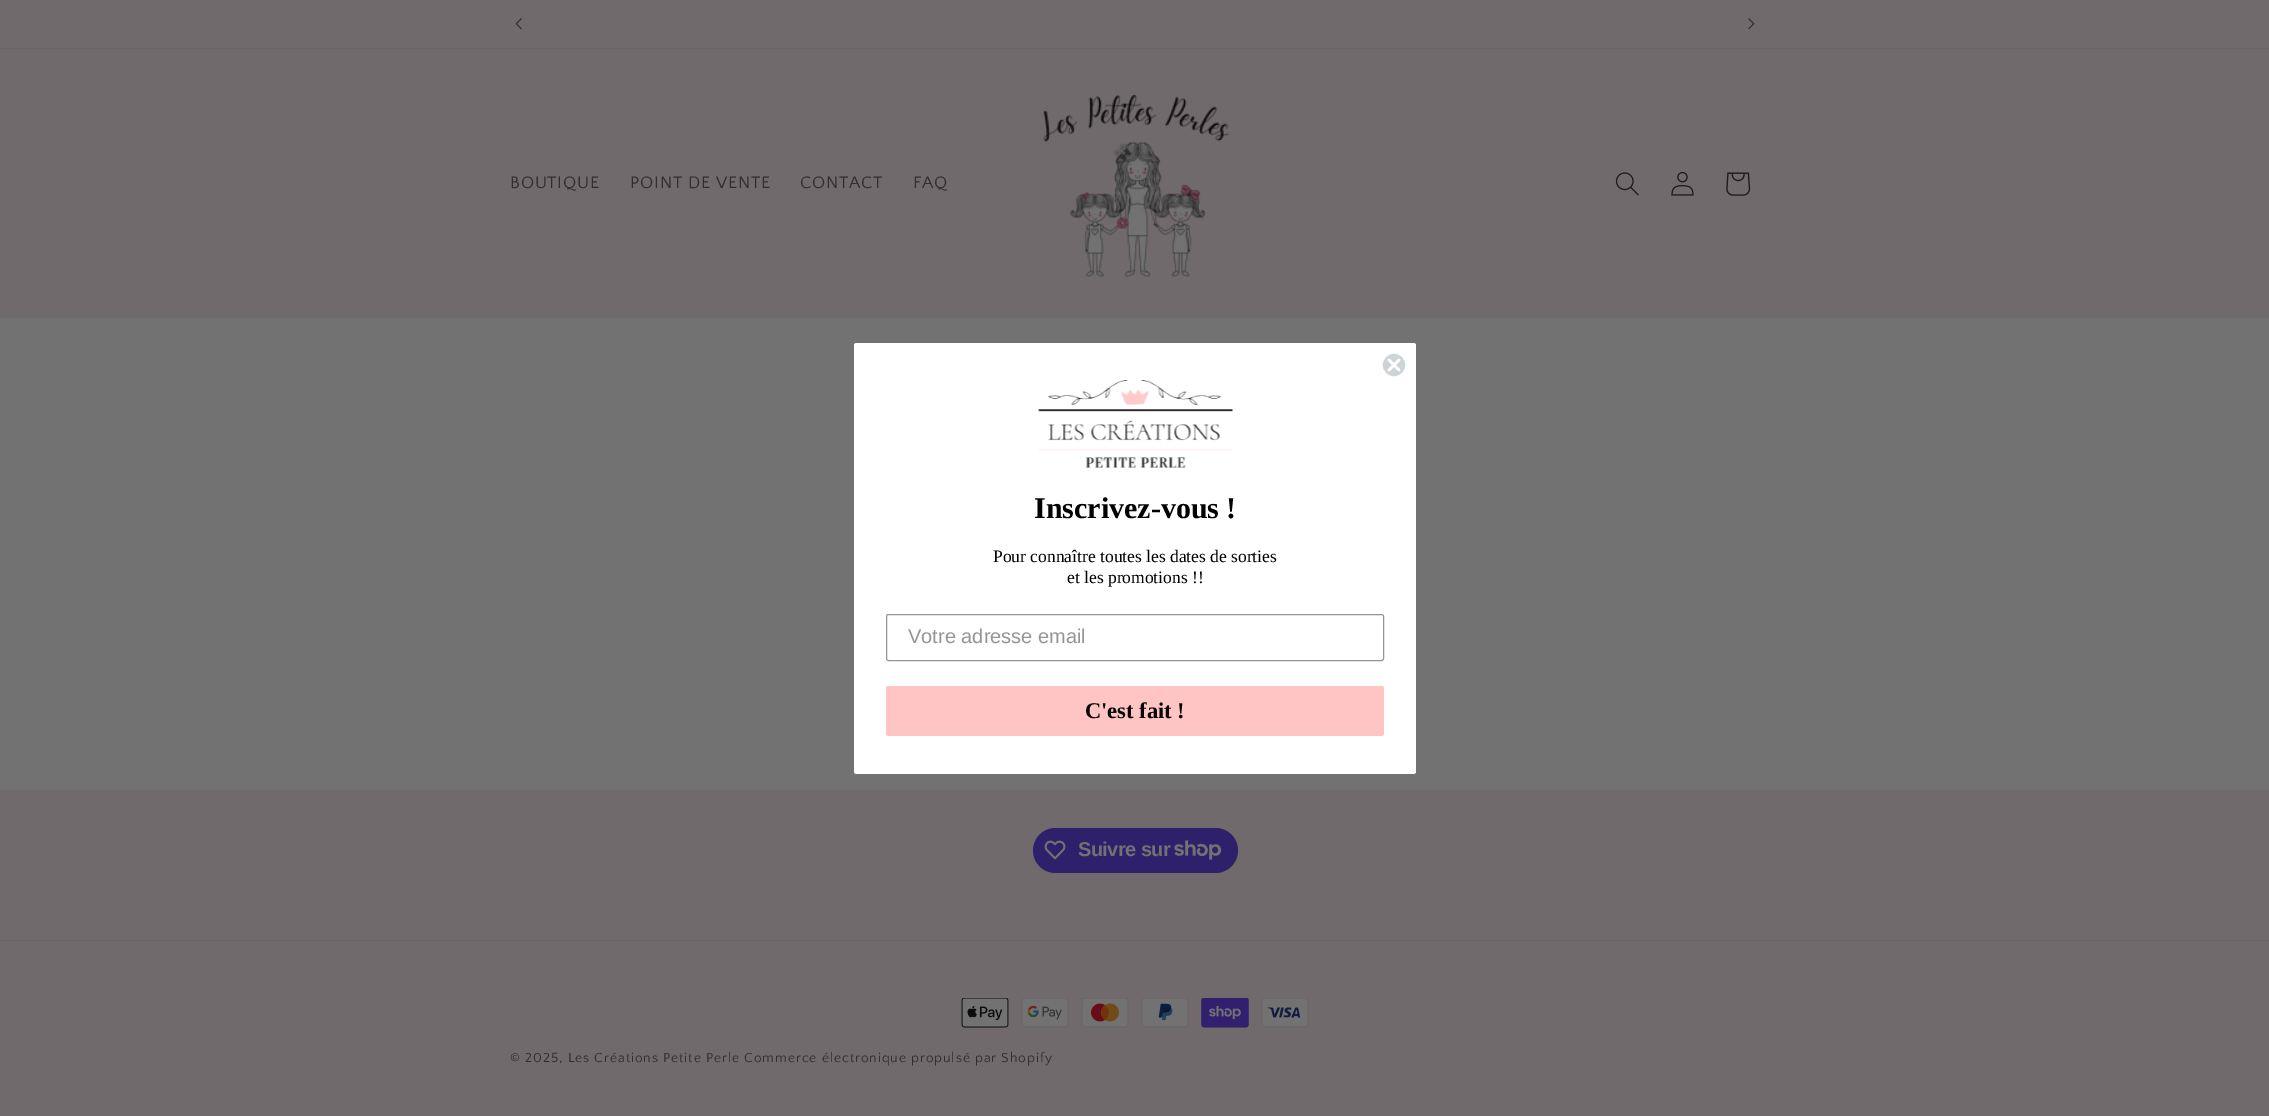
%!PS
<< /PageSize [2269 1116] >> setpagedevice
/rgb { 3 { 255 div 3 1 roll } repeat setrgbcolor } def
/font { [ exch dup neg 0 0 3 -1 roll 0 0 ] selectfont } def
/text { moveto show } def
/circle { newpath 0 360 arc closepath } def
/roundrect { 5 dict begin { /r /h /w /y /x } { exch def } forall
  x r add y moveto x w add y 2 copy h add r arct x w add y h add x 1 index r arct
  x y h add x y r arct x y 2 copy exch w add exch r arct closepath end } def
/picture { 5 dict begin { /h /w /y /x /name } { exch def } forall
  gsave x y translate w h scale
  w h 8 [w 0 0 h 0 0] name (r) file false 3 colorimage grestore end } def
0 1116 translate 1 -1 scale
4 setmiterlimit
114 114 114 rgb
0 0 2269 1116 rectfill
113 106 109 rgb
0 0 2269 48 rectfill
106 100 102 rgb
0 48 2269 1 rectfill
(img_01.rgb) 515 18 7 12 picture
(img_02.rgb) 1748 18 7 12 picture
113 106 109 rgb
0 49 2269 269 rectfill
(img_03.rgb) 1043 94 186 184 picture
(img_04.rgb) 1615 172 24 24 picture
(img_05.rgb) 1671 171 23 25 picture
(img_06.rgb) 1726 172 25 24 picture
255 255 255 rgb
854 343 562 431 2.5 roundrect fill
206 211 216 rgb
1394 365 12 circle gsave fill grestore
255 255 255 rgb
1.2 setlinewidth
stroke
2.5 setlinewidth
1 setlinecap
1 setlinejoin
1389 360 moveto 10 10 rlineto 1389 370 moveto 10 -10 rlineto closepath stroke
(img_07.rgb) 1038 380 195 88 picture
148 149 150 rgb
1 setlinewidth
0 setlinecap
0 setlinejoin
886.5 614.5 497 46 2 roundrect stroke
255 197 197 rgb
886 686 498 50 2.5 roundrect fill
113 106 109 rgb
0 790 2269 326 rectfill
46 32 106 rgb
1033 828 205 45 22.5 roundrect fill
(img_08.rgb) 1044 840 22 20 picture
(img_09.rgb) 1174 840 48 20 picture
106 100 102 rgb
0 940 2269 1 rectfill
(img_10.rgb) 961 998 48 30 picture
(img_11.rgb) 1021 998 48 30 picture
(img_12.rgb) 1081 998 48 30 picture
(img_13.rgb) 1141 998 48 30 picture
(img_14.rgb) 1201 998 48 30 picture
(img_15.rgb) 1261 998 48 30 picture
/QuattrocentoSans-Regular 17.5 font
48 47 47 rgb
510 188 moveto 0.75 0 (BOUTIQUE) ashow
630 188 moveto 0.75 0 (POINT DE VENTE) ashow
800 188 moveto 0.75 0 (CONTACT) ashow
913 188 moveto 0.75 0 (FAQ) ashow
/LiberationSerif-Bold 30 font
0 0 0 rgb
(Inscrivez-vous !) 1034 518 text
/LiberationSerif-Regular 17.5 font
(Pour connaître toutes les dates de sorties) 993 562 text
(et les promotions !!) 1067 583 text
/LiberationSans-Regular 20 font
148 149 150 rgb
(Votre adresse email) 908 643 text
/LiberationSerif-Bold 22.5 font
8 8 8 rgb
(C'est fait !) 1085 718 text
/LiberationSans-Bold 20 font
114 114 114 rgb
1078 856 moveto -0.6 0 (Suivre sur) ashow
/QuattrocentoSans-Regular 13.75 font
48 47 47 rgb
510 1062 moveto 0.9 0 (© 2025, Les Créations Petite Perle) ashow
744 1062 moveto 0.9 0 (Commerce électronique propulsé par Shopify) ashow
showpage
